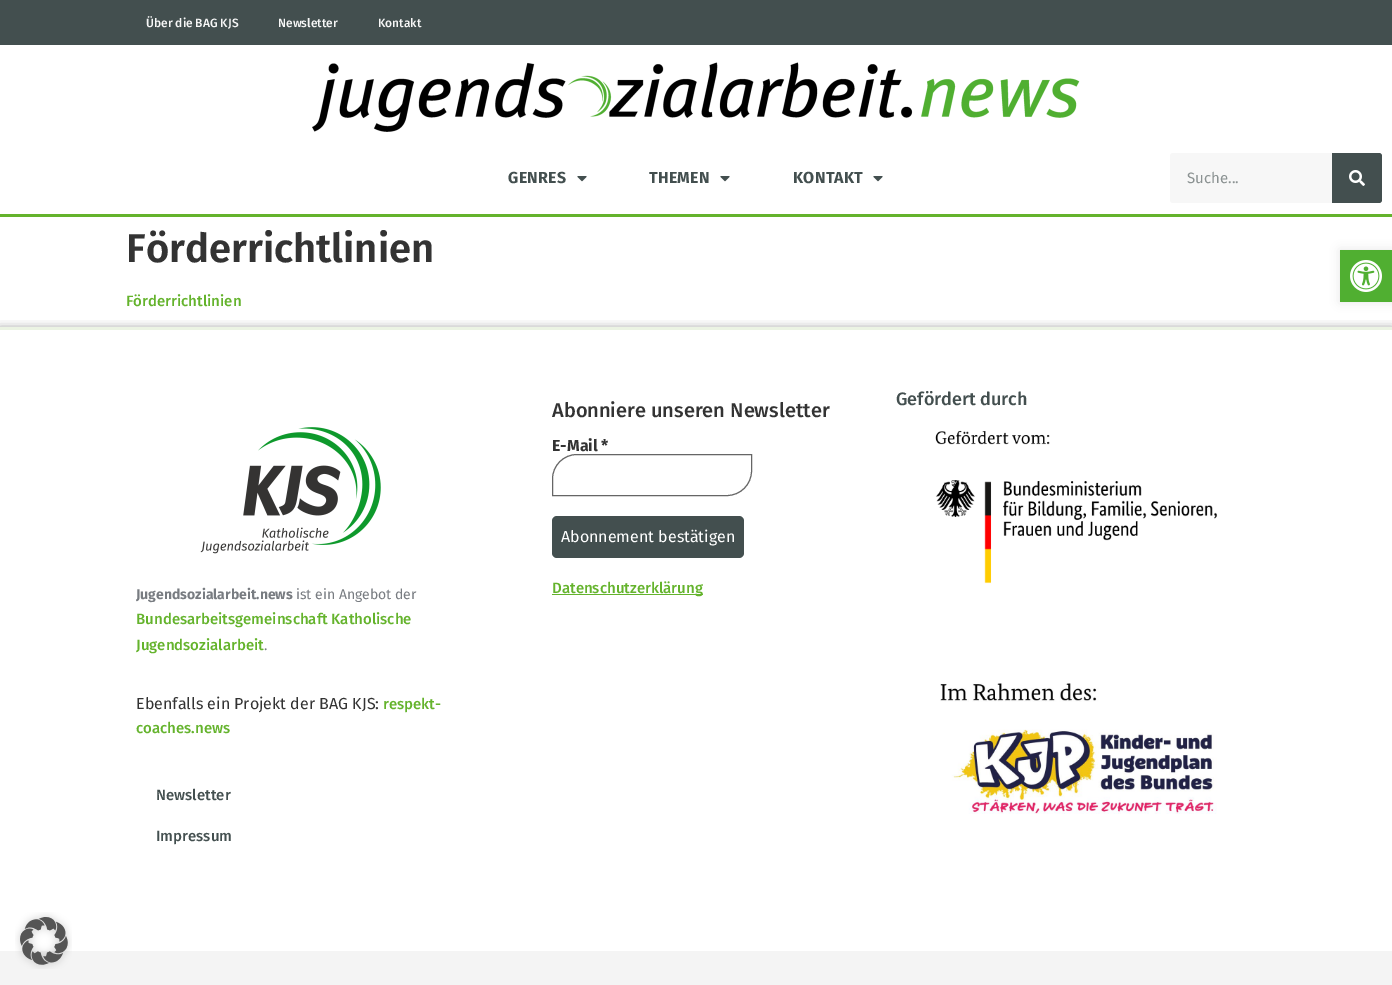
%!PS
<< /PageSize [1392 985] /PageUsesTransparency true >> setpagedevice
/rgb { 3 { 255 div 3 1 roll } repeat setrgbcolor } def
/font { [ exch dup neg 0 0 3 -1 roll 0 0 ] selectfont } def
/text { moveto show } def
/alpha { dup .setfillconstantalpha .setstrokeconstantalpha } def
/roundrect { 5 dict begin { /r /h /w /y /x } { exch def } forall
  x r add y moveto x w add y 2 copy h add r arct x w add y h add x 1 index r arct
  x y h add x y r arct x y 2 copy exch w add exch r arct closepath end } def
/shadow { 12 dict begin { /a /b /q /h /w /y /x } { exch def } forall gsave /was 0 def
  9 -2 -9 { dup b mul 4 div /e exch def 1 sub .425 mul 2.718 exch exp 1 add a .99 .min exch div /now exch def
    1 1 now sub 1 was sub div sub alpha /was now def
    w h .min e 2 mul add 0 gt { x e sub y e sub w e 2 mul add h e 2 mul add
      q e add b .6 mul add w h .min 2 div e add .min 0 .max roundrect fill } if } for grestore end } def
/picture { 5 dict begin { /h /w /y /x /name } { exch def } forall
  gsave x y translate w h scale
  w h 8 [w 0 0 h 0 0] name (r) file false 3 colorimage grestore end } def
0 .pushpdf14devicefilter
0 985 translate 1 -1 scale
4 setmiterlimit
255 255 255 rgb
0 0 1392 985 rectfill
67 79 79 rgb
0 0 1392 45 rectfill
(img_01.rgb) 312 62 768 70 picture
100 179 44 rgb
0 214 1392 3 rectfill
(img_02.rgb) 577 176 10 6 picture
(img_02.rgb) 720 176 10 6 picture
(img_02.rgb) 873 176 10 6 picture
247 247 247 rgb
1170 153 212 50 3 roundrect fill
67 79 79 rgb
1332 153 moveto 47 0 rlineto 1.5 0 3 1.5 3 3 rcurveto 0 44 rlineto 0 1.5 -1.5 3 -3 3 rcurveto -47 0 rlineto closepath fill
(img_03.rgb) 1349 170 16 16 picture
0 0 0 rgb
1340 250 52 52 0 5 0.1 shadow
80 175 49 rgb
1340 250 52 52 rectfill
(img_04.rgb) 1350 260 32 32 picture
gsave
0 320 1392 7 rectclip
0 0 0 rgb
0 329 1392 624 0 5 0.5 shadow
grestore
235 243 227 rgb
0 327 1392 3 rectfill
(img_05.rgb) 935 430 283 154 picture
(img_06.rgb) 940 683 277 131 picture
102 102 102 rgb
577 454.5 moveto 174.5 0 rlineto 0 16.5 rlineto 0 13.5 -11 24.5 -24.5 24.5 rcurveto -174.5 0 rlineto 0 -16.5 rlineto 0 -13.5 11 -24.5 24.5 -24.5 rcurveto closepath stroke
67 79 79 rgb
552 516 192 42 5 roundrect fill
100 179 44 rgb
552 594 151 1 rectfill
(img_07.rgb) 200 427 181 127 picture
244 244 244 rgb
0 951 1392 34 rectfill
(img_08.rgb) 15 912 57 57 picture
/FiraSans-Medium 12 font
247 247 247 rgb
(Über die BAG KJS) 146 27 text
(Newsletter) 278 27 text
(Kontakt) 378 27 text
/FiraSans-Bold 16 font
67 79 79 rgb
508 183 moveto 0.25 0 (GENRES) ashow
649 183 moveto 0.25 0 (THEMEN) ashow
793 183 moveto 0.25 0 (KONTAKT) ashow
/FiraSans-Regular 15 font
139 146 146 rgb
(Suche...) 1187 183 text
/FiraSans-SemiBold 40 font
51 51 51 rgb
(Förderrichtlinien) 126 262 text
/FiraSans-Medium 15 font
100 179 44 rgb
(Förderrichtlinien) 126 306 text
/FiraSans-Medium 18 font
67 79 79 rgb
(Gefördert durch) 896 405 text
/FiraSans-Medium 20 font
51 51 51 rgb
(Abonniere unseren Newsletter) 552 417 text
/FiraSans-Bold 16 font
(E-Mail *) 552 451 text
/FiraSans-Regular 16 font
255 255 255 rgb
(Abonnement bestätigen) 561 542 text
/FiraSans-Medium 15 font
100 179 44 rgb
(Datenschutzerklärung) 552 593 text
/FiraSans-Bold 14 font
120 124 129 rgb
(Jugendsozialarbeit.news) 136 599 text
/FiraSans-Regular 14 font
(ist ein Angebot der) 296 599 text
/FiraSans-Medium 15 font
100 179 44 rgb
(Bundesarbeitsgemeinschaft Katholische) 136 624 text
(Jugendsozialarbeit) 136 650 text
/FiraSans-Regular 14 font
120 124 129 rgb
(.) 264 650 text
/FiraSans-Regular 16 font
51 51 51 rgb
(Ebenfalls ein Projekt der BAG KJS:) 136 709 text
/FiraSans-Medium 15 font
100 179 44 rgb
(respekt-) 383 709 text
(coaches.news) 136 733 text
67 79 79 rgb
(Newsletter) 156 800 text
(Impressum) 156 841 text
.poppdf14devicefilter showpage
